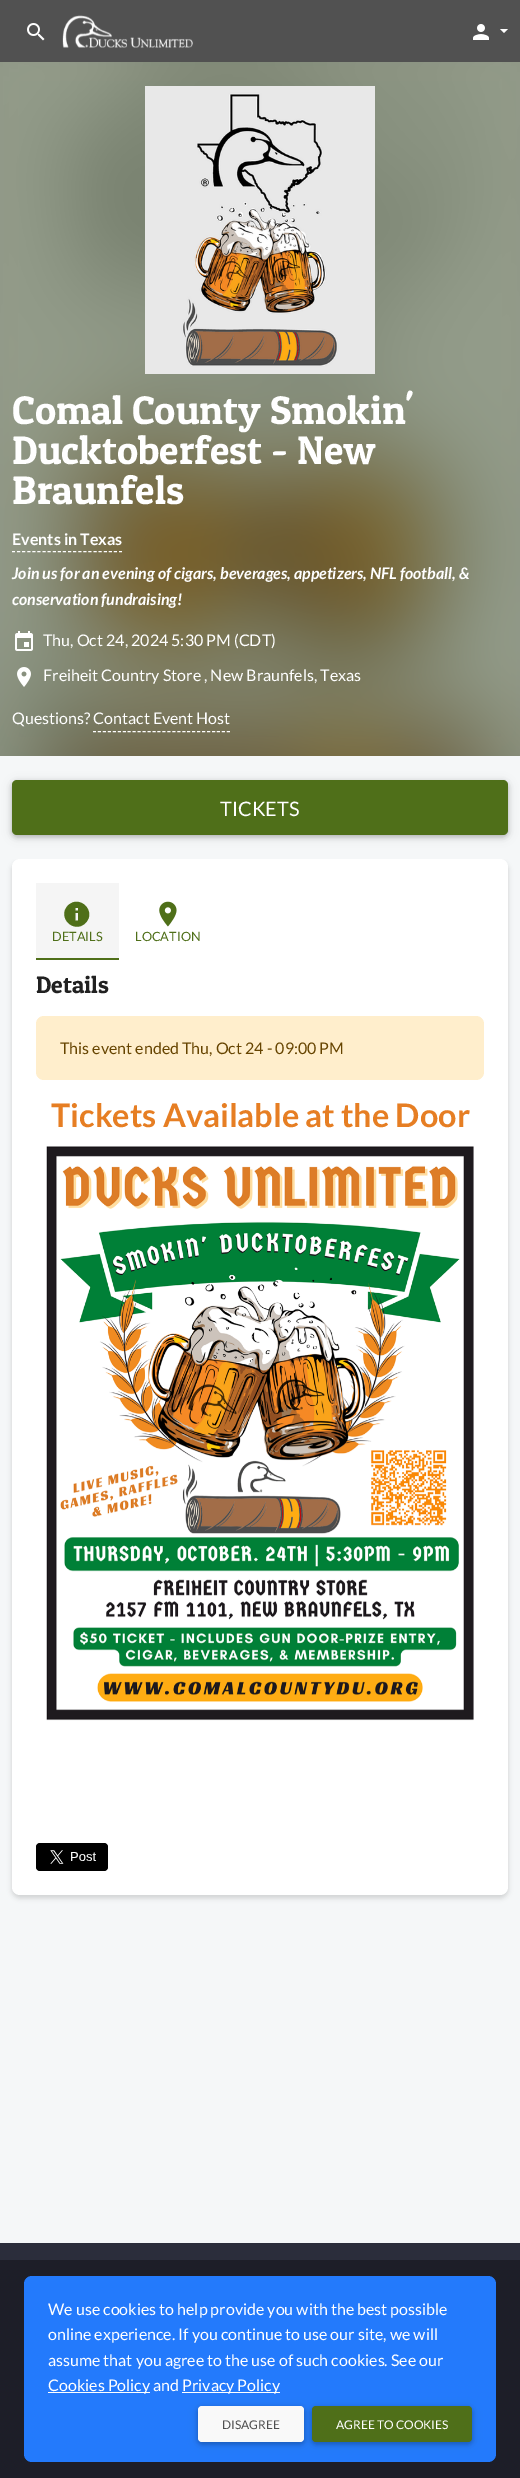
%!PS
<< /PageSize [520 2478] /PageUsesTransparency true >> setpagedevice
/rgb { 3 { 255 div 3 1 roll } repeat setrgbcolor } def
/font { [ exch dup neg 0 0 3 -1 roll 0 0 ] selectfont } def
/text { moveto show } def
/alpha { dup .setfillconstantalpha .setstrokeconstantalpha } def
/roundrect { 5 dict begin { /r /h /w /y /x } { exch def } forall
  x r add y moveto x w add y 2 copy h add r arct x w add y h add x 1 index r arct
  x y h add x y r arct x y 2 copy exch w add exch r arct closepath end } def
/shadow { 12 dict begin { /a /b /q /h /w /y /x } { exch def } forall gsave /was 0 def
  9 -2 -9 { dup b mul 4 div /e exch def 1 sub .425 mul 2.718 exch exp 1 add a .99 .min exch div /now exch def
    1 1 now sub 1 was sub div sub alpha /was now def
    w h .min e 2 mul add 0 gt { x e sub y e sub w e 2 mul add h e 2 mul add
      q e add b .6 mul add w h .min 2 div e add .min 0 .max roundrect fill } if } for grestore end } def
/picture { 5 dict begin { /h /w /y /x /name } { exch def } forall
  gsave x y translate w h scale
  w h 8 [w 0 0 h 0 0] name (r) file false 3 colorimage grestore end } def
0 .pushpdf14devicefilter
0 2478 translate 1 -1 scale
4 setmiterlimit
29 30 40 rgb
0 0 520 2478 rectfill
245 247 248 rgb
0 62 520 2181 rectfill
gsave
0 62 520 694 rectclip
61 78 42 rgb
-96 -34 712 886 0 48 1 shadow
grestore
81 81 81 rgb
0 0 520 62 rectfill
(img_01.rgb) 27 23 18 18 picture
(img_02.rgb) 62 15 131 33 picture
(img_03.rgb) 473 24 16 16 picture
255 255 255 rgb
500 29 moveto 8 0 rlineto -4 4 rlineto closepath fill
(img_04.rgb) 0 62 520 694 picture
(img_05.rgb) 145 86 230 288 picture
[3 2.1] 0 setdash
12 551.5 moveto 110 0 rlineto stroke
(img_06.rgb) 15 631 18 20 picture
(img_07.rgb) 17 667 14 20 picture
[3 1.96] 0 setdash
93 731.5 moveto 137 0 rlineto stroke
0 0 0 rgb
12 862 496 1036 8 2.5 0.15 shadow
245 247 248 rgb
8 setlinewidth
[] 0 setdash
8 760 504 95 rectstroke
0 0 0 rgb
12 782 496 55 5 5 0.1 shadow
12 782 496 55 5 2.5 0.2 shadow
79 111 25 rgb
12 780 496 55 5 roundrect fill
255 255 255 rgb
12 859 496 1036 8 roundrect fill
245 245 245 rgb
36 883 83 75 rectfill
79 111 25 rgb
36 958 83 2 rectfill
78 910.5 moveto 0 -2.5 rlineto -2.5 0 rlineto 0 2.5 rlineto closepath 78 920.5 moveto 0 -7.5 rlineto -2.5 0 rlineto 0 7.5 rlineto closepath 68 905.5 moveto 11.5 -11.5 29 6 17.5 17.5 rcurveto -11.5 11.5 -29 -6 -17.5 -17.5 rcurveto closepath fill
(img_08.rgb) 159 901 18 26 picture
255 238 204 rgb
36 1016 448 64 8 roundrect fill
(img_09.rgb) 46 1146 428 575 picture
0 0 0 rgb
36 1843 72 28 4 roundrect fill
(img_10.rgb) 50 1850 47 14 picture
43 45 59 rgb
0 2243 520 17 rectfill
35 122 252 rgb
24 2276 472 186 8 roundrect fill
255 255 255 rgb
48 2392 102 1 rectfill
0 0 0 rgb
312 2408 160 36 4 5 0.1 shadow
312 2408 160 36 4 2.5 0.2 shadow
79 111 25 rgb
312 2406 160 36 4 roundrect fill
0 0 0 rgb
198 2408 106 36 4 5 0.1 shadow
255 255 255 rgb
182 2392 98 1 rectfill
0 0 0 rgb
198 2408 106 36 4 2.5 0.2 shadow
249 249 249 rgb
198 2406 106 36 4 roundrect fill
/PatuaOne-Regular 40 font
255 255 255 rgb
(Comal County Smokin') 12 424 text
(Ducktoberfest - New) 12 464 text
(Braunfels) 12 504 text
/Lato-Bold 16 font
(Events in Texas) 12 545 text
/Lato-BoldItalic 16 font
(Join us for an evening of cigars, beverages, appetizers, NFL football, &) 12 579 text
(conservation fundraising!) 12 605 text
/Lato-Regular 16 font
(Thu, Oct 24, 2024 5:30 PM \(CDT\)) 43 646 text
(Freiheit Country Store , New Braunfels, Texas) 43 681 text
(Questions? Contact Event Host) 12 724 text
/Lato-Regular 20 font
(TICKETS) 220 816 text
/Lato-Regular 12.75 font
79 111 25 rgb
(DETAILS) 52 941 text
(LOCATION) 135 941 text
/PatuaOne-Regular 24 font
33 33 33 rgb
(Details) 36 993 text
/Lato-Regular 16 font
102 68 0 rgb
(This event ended Thu, Oct 24 - 09:00 PM) 60 1054 text
/Lato-Bold 32.4 font
230 126 35 rgb
(Tickets Available at the Door) 51 1127 text
/Lato-Regular 16 font
255 255 255 rgb
(We use cookies to help provide you with the best possible) 48 2315 text
(online experience. If you continue to use our site, we will) 48 2340 text
(assume that you agree to the use of such cookies. See our) 48 2366 text
(Cookies Policy and) 48 2391 text
(Privacy Policy) 182 2391 text
/Lato-Regular 12 font
79 79 79 rgb
(DISAGREE) 222 2429 text
255 255 255 rgb
(AGREE TO COOKIES) 336 2429 text
.poppdf14devicefilter showpage
